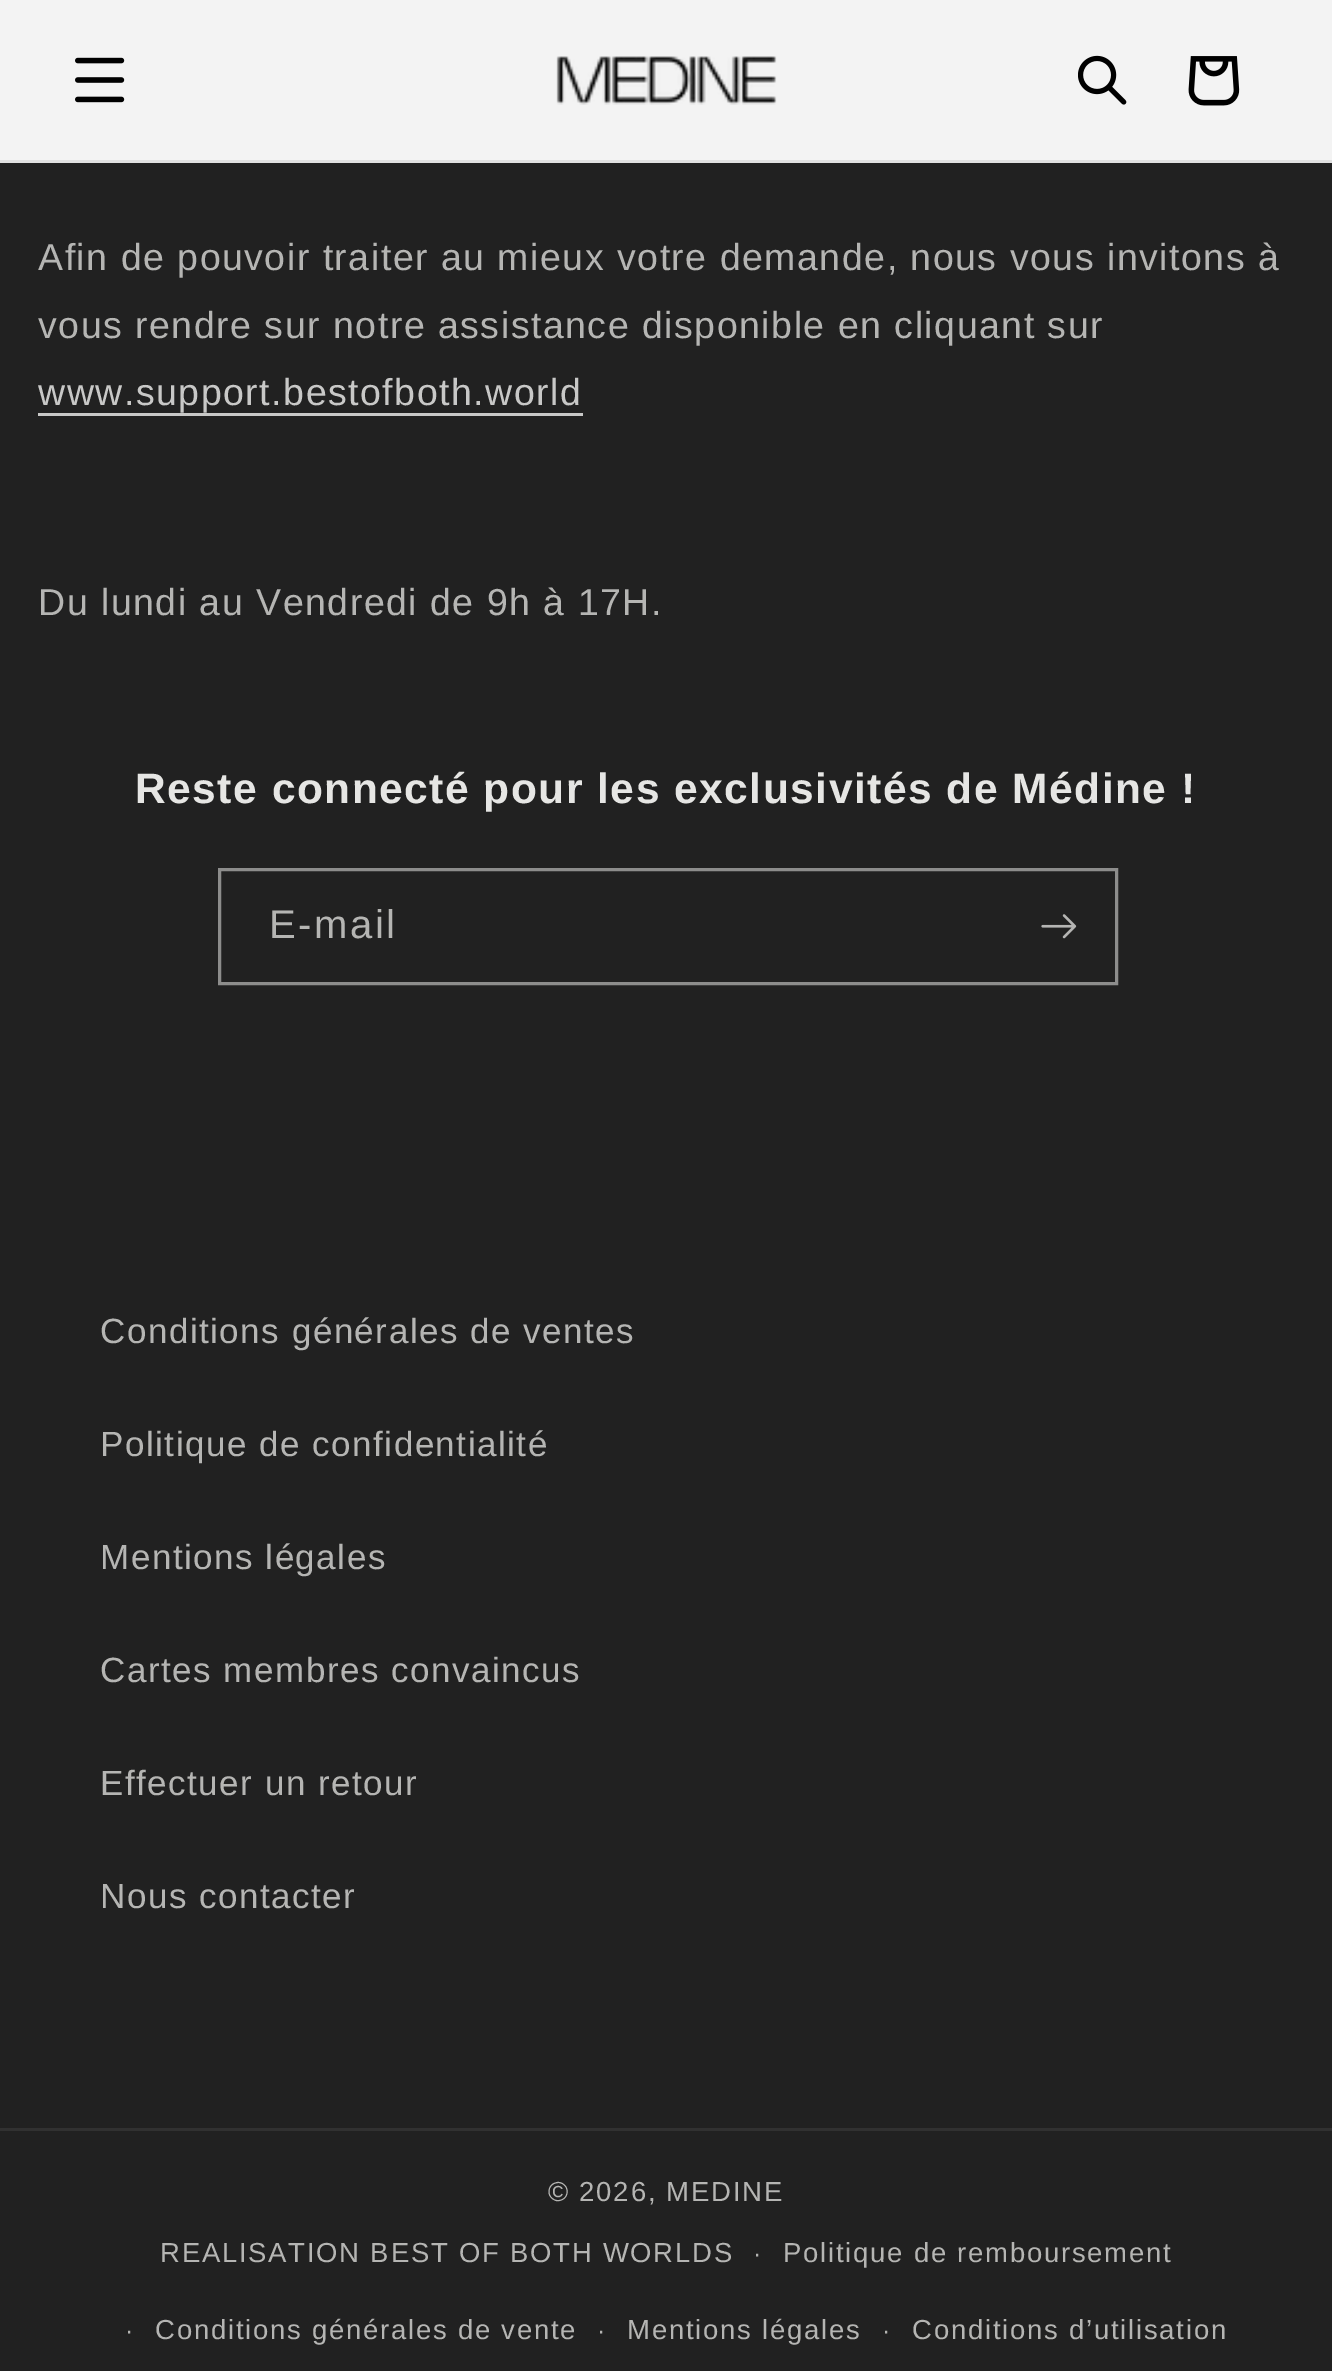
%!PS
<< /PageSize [1332 2371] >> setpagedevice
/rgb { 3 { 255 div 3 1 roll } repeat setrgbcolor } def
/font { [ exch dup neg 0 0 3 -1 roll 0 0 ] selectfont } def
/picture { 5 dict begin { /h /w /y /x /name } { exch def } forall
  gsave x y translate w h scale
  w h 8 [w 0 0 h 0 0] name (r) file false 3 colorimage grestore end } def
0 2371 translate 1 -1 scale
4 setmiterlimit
33 33 33 rgb
0 0 1332 2371 rectfill
243 243 243 rgb
0 0 1332 160 rectfill
225 225 225 rgb
0 160 1332 3 rectfill
(img_01.rgb) 75 57 50 46 picture
(img_02.rgb) 556 56 221 49 picture
(img_03.rgb) 1078 55 49 50 picture
(img_04.rgb) 1188 56 52 50 picture
200 200 199 rgb
38 413 545 3 rectfill
141 141 140 rgb
3 setlinewidth
219.5 869.5 897 114 rectstroke
(img_05.rgb) 1041 914 36 25 picture
49 49 49 rgb
0 2128 1332 3 rectfill
/LiberationSans-Regular 37.5 font
181 181 179 rgb
38 270 moveto 1.5 0 (Afin de pouvoir traiter au mieux votre demande, nous vous invitons à) ashow
38 338 moveto 1.5 0 (vous rendre sur notre assistance disponible en cliquant sur) ashow
200 200 199 rgb
38 405 moveto 1.5 0 (www.support.bestofboth.world) ashow
181 181 179 rgb
38 615 moveto 1.5 0 (Du lundi au Vendredi de 9h à 17H.) ashow
/LiberationSans-Bold 42.5 font
230 230 228 rgb
135 803 moveto 1.5 0 (Reste connecté pour les exclusivités de Médine !) ashow
/LiberationSans-Regular 40 font
181 181 179 rgb
269 938 moveto 2.5 0 (E-mail) ashow
/LiberationSans-Regular 35 font
100 1343 moveto 1.5 0 (Conditions générales de ventes) ashow
100 1456 moveto 1.5 0 (Politique de confidentialité) ashow
100 1569 moveto 1.5 0 (Mentions légales) ashow
100 1682 moveto 1.5 0 (Cartes membres convaincus) ashow
100 1795 moveto 1.5 0 (Effectuer un retour) ashow
100 1908 moveto 1.5 0 (Nous contacter) ashow
/LiberationSans-Regular 27.5 font
548 2201 moveto 1.75 0 (© 2026, MEDINE) ashow
/LiberationSans-Regular 25 font
753 2262 moveto 1.75 0 (·) ashow
/LiberationSans-Regular 27.5 font
783 2262 moveto 1.75 0 (Politique de remboursement) ashow
/LiberationSans-Regular 25 font
125 2339 moveto 1.75 0 (·) ashow
/LiberationSans-Regular 27.5 font
155 2339 moveto 1.75 0 (Conditions générales de vente) ashow
/LiberationSans-Regular 25 font
597 2339 moveto 1.75 0 (·) ashow
/LiberationSans-Regular 27.5 font
627 2339 moveto 1.75 0 (Mentions légales) ashow
/LiberationSans-Regular 25 font
882 2339 moveto 1.75 0 (·) ashow
/LiberationSans-Regular 27.5 font
912 2339 moveto 1.75 0 (Conditions d’utilisation) ashow
160 2262 moveto 1.75 0 (REALISATION BEST OF BOTH WORLDS) ashow
showpage
